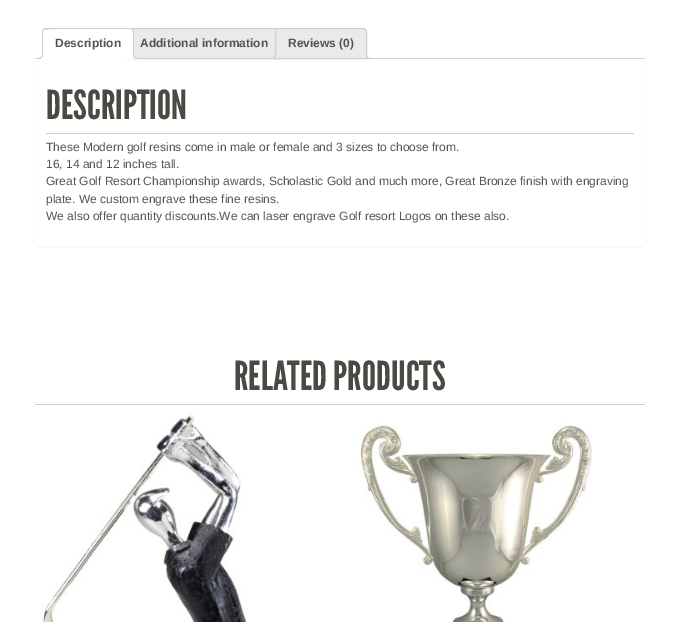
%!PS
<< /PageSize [680 622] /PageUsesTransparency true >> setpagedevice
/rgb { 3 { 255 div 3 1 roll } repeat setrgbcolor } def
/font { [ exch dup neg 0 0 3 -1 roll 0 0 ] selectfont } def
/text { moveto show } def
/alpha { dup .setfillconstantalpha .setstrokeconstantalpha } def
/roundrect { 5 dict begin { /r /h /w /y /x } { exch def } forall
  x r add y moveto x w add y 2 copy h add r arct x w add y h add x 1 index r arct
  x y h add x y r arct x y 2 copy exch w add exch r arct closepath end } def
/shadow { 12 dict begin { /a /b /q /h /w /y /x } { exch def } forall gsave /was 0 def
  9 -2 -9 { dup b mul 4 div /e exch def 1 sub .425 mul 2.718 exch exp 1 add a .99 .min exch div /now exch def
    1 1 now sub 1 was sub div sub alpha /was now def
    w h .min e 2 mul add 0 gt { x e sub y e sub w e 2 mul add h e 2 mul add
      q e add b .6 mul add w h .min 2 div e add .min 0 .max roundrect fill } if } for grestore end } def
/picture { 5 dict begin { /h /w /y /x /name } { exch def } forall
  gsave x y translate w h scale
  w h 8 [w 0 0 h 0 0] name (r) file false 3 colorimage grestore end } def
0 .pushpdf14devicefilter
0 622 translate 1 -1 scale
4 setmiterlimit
255 255 255 rgb
0 0 680 622 rectfill
0 0 0 rgb
35 59 610 188 4 0.5 0.05 shadow
255 255 255 rgb
35 58 610 188 4 roundrect fill
235 233 235 rgb
131 28.5 moveto 146 0 rlineto 2 0 3.5 1.5 3.5 3.5 rcurveto 0 26.5 rlineto -153 0 rlineto 0 -26.5 rlineto 0 -2 1.5 -3.5 3.5 -3.5 rcurveto closepath gsave fill grestore
211 206 210 rgb
stroke
235 233 235 rgb
279 28.5 moveto 84 0 rlineto 2 0 3.5 1.5 3.5 3.5 rcurveto 0 26.5 rlineto -91 0 rlineto 0 -26.5 rlineto 0 -2 1.5 -3.5 3.5 -3.5 rcurveto closepath gsave fill grestore
211 206 210 rgb
stroke
gsave
35 28 610 31 rectclip
235 233 235 rgb
273 59 moveto 0 2 rlineto 3.5 0 5 -1.5 5 -5 rcurveto -2 0 rlineto -0.5 1.5 -1.5 2.5 -3 3 rcurveto closepath fill
grestore
271 54 moveto 5 0 rlineto 0 3.5 -1.5 5 -5 5 rcurveto closepath 271 54 moveto 4 0 rlineto 0 3 -1 4 -4 4 rcurveto closepath eofill
gsave
35 28 610 31 rectclip
235 233 235 rgb
364 56 moveto 0 3.5 1.5 5 5 5 rcurveto 0 -2 rlineto -1.5 -0.5 -2.5 -1.5 -3 -3 rcurveto closepath fill
grestore
366 54 moveto 5 0 rlineto 0 5 rlineto -2.5 0 -5 -1 -5 -4 rcurveto closepath 367 54 moveto 4 0 rlineto 0 4 rlineto -2 0 -4 -0.5 -4 -3 rcurveto closepath eofill
35 58 610 1 rectfill
255 255 255 rgb
46 28 moveto 84 0 rlineto 2 0 4 2 4 4 rcurveto 0 27 rlineto -92 0 rlineto 0 -27 rlineto 0 -2 2 -4 4 -4 rcurveto closepath fill
211 206 210 rgb
46 28 moveto -3 1 rlineto 1 1 rlineto 2 -2 64 -1 72 -1 rcurveto 14 0 rlineto 2 1 rlineto 1 -1 rlineto -3 -1 rlineto closepath fill
134 59 moveto 0 -27 rlineto 0 -1 -0.5 -2 -1 -3 rcurveto -1 1 rlineto 1 0 1 1 1 2 rcurveto 0 26 rlineto closepath fill
255 255 255 rgb
134 59 moveto -1 -1 rlineto -90 0 rlineto -1 1 rlineto closepath fill
211 206 210 rgb
42 59 moveto 1 -1 rlineto 0 -26 rlineto 0 -1 0 -2 1 -2 rcurveto -1 -1 rlineto -0.5 1 -1 2 -1 3 rcurveto closepath fill
gsave
35 28 610 31 rectclip
255 255 255 rgb
40 59 moveto 0 2 rlineto 3.5 0 5 -1.5 5 -5 rcurveto -2 0 rlineto -0.5 1.5 -1.5 2.5 -3 3 rcurveto closepath fill
grestore
38 54 moveto 5 0 rlineto 0 3.5 -1.5 5 -5 5 rcurveto closepath 38 54 moveto 4 0 rlineto 0 3 -1 4 -4 4 rcurveto closepath eofill
gsave
35 28 610 31 rectclip
255 255 255 rgb
131 56 moveto 0 3.5 1.5 5 5 5 rcurveto 0 -2 rlineto -1.5 -0.5 -2.5 -1.5 -3 -3 rcurveto closepath fill
grestore
133 54 moveto 5 0 rlineto 0 5 rlineto -2.5 0 -5 -1 -5 -4 rcurveto closepath 134 54 moveto 4 0 rlineto 0 4 rlineto -2 0 -4 -0.5 -4 -3 rcurveto closepath eofill
205 205 205 rgb
46 133 588 1 rectfill
35 404 610 1 rectfill
(img_01.rgb) 42 410 205 212 picture
(img_02.rgb) 359 423 233 199 picture
/LiberationSans-Bold 12 font
85 85 85 rgb
(Description) 55 47 text
(Additional information) 140 47 text
(Reviews \(0\)) 288 47 text
/LeagueGothic-Regular 40 font
74 74 67 rgb
(DESCRIPTION) 46 119 text
/LiberationSans-Regular 12 font
85 85 85 rgb
(These Modern golf resins come in male or female and 3 sizes to choose from.) 46 151 text
(16, 14 and 12 inches tall.) 46 168 text
(Great Golf Resort Championship awards, Scholastic Gold and much more, Great Bronze finish with engraving) 46 185 text
(plate. We custom engrave these fine resins.) 46 203 text
(We also offer quantity discounts.We can laser engrave Golf resort Logos on these also.) 46 220 text
/LeagueGothic-Regular 40 font
74 74 67 rgb
(RELATED PRODUCTS) 234 390 text
.poppdf14devicefilter showpage
